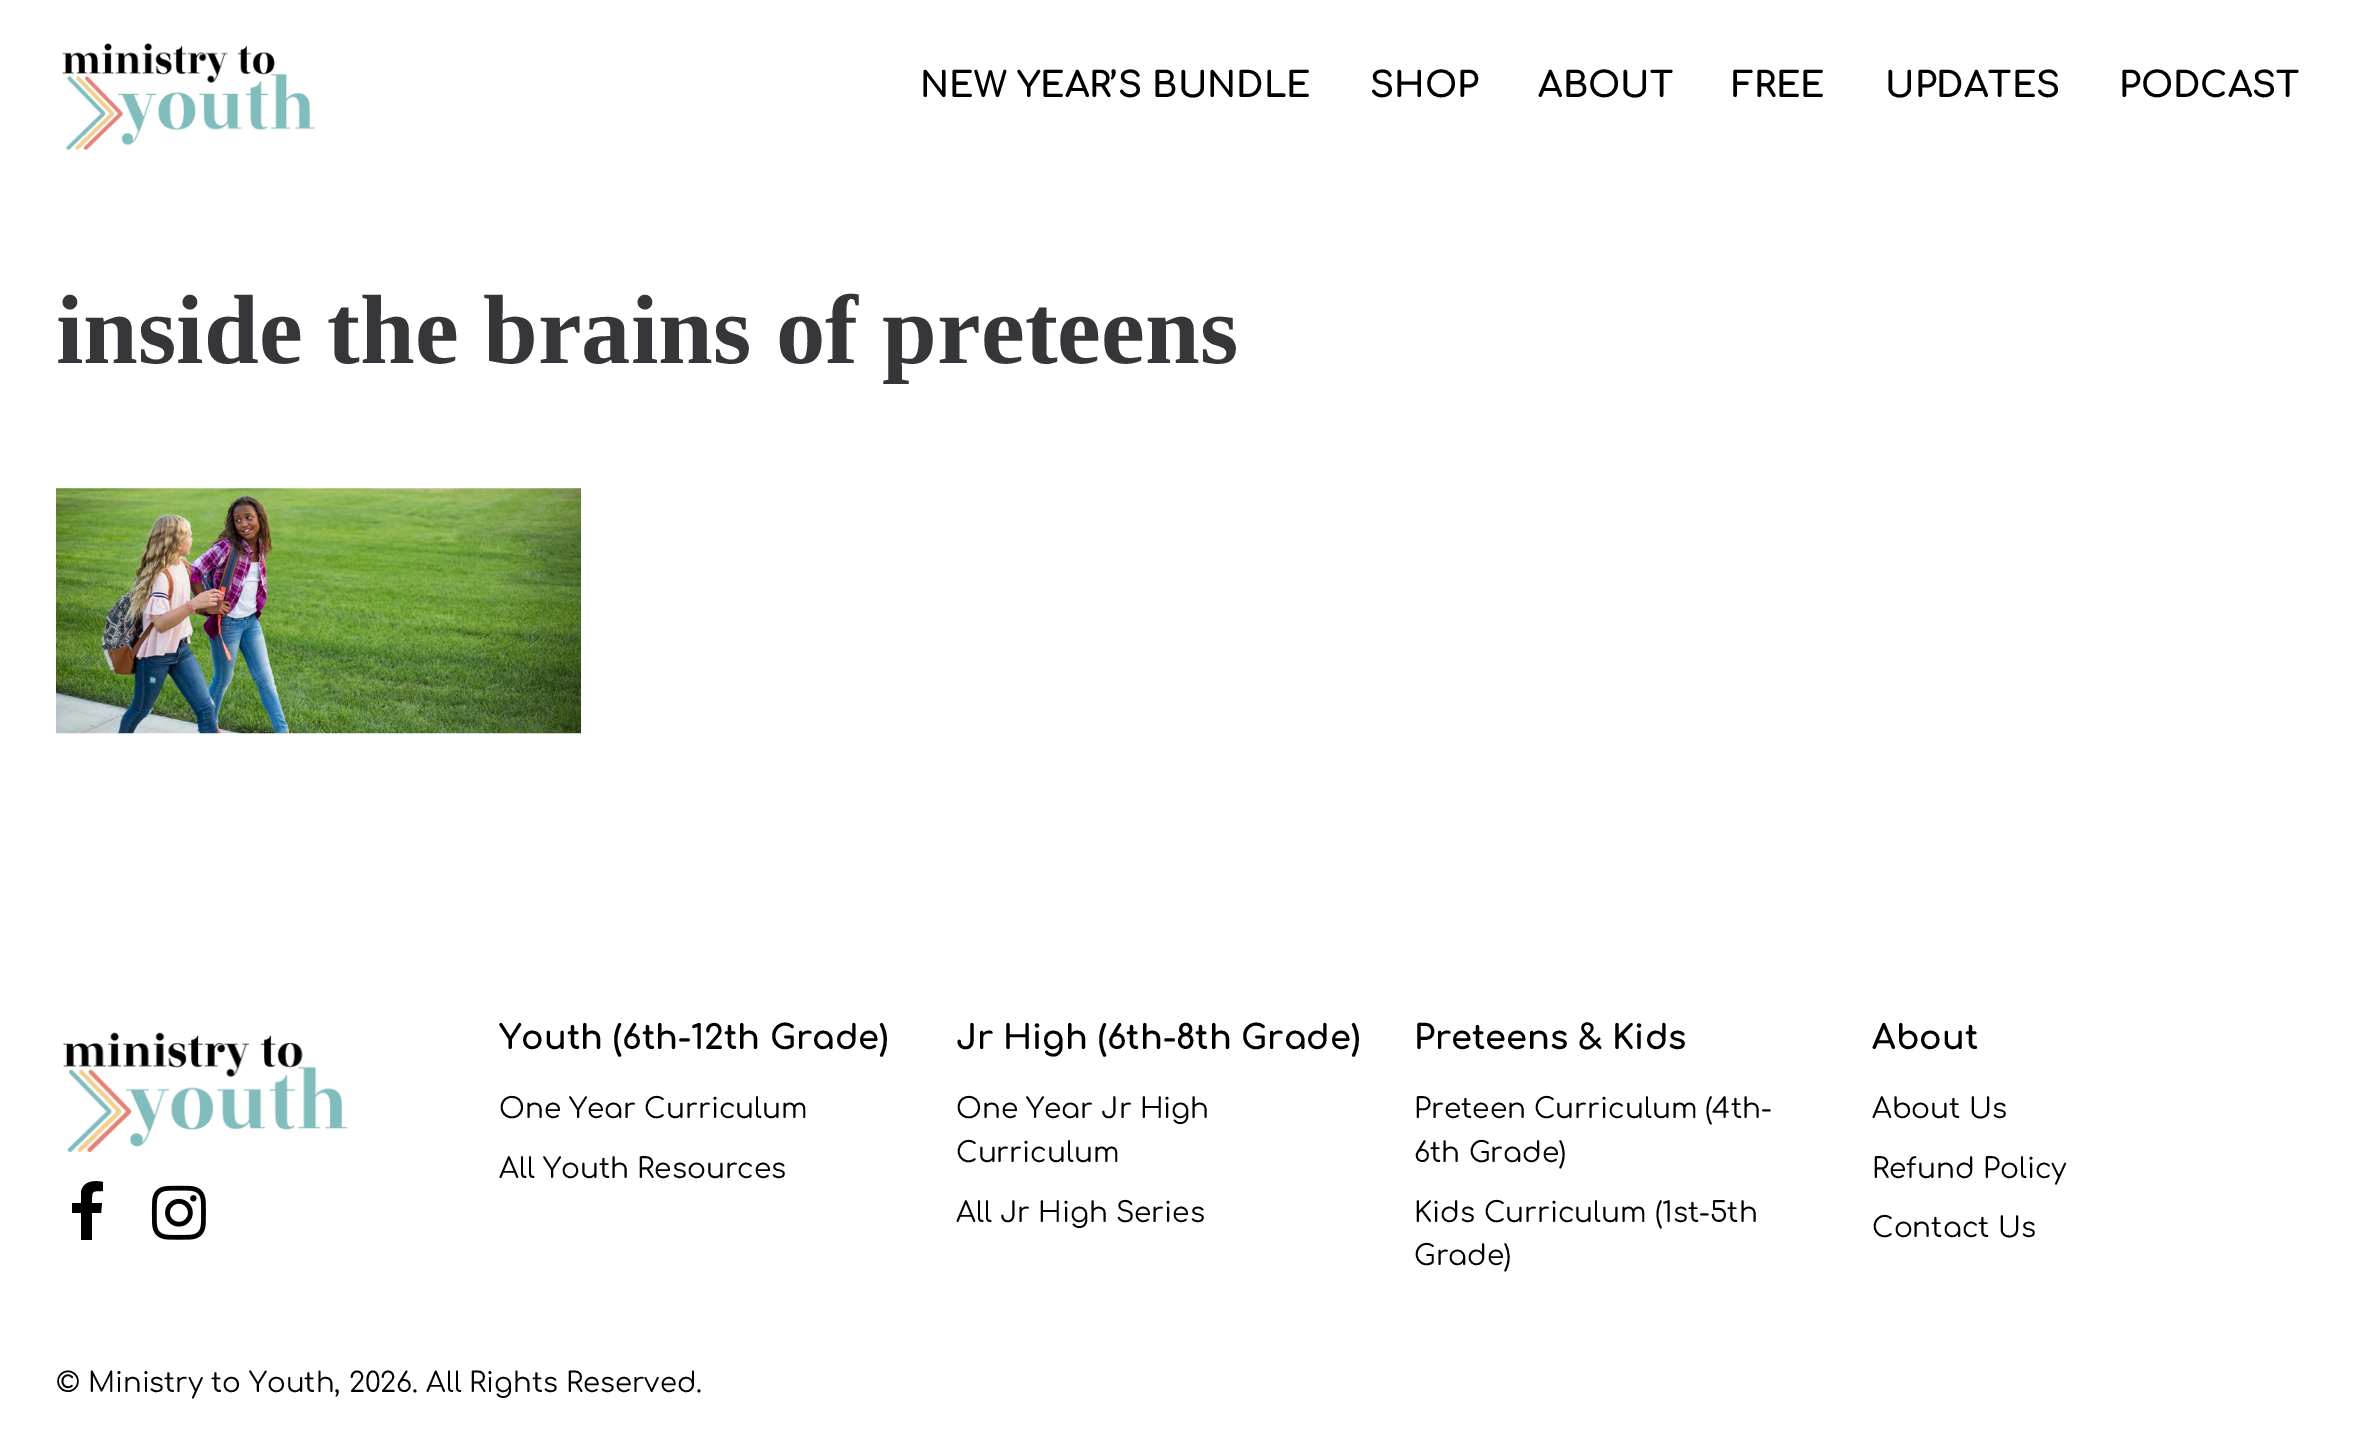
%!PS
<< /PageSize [2354 1440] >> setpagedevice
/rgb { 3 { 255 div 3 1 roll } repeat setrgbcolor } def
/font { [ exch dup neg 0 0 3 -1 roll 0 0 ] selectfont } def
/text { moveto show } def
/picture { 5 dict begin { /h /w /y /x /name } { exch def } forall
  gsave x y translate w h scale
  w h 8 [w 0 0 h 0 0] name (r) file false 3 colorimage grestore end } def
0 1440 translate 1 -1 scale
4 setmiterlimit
255 255 255 rgb
0 0 2354 1440 rectfill
(img_01.rgb) 62 43 253 108 picture
(img_02.rgb) 56 488 525 246 picture
(img_03.rgb) 63 1032 285 121 picture
0 0 0 rgb
103 1182 moveto 0 9 rlineto -12 0 -11 0 -11 12 rcurveto 10 0 rlineto -1 10 rlineto -9 0 rlineto 0 27 rlineto -11 0 rlineto 0 -27 rlineto -9 0 rlineto 0 -10 rlineto 9 0 rlineto 0 -11 rlineto 2 -11 13 -12 22 -10 rcurveto closepath fill
(img_04.rgb) 151 1185 55 55 picture
/Comfortaa-Bold 35 font
(NEW YEAR’S BUNDLE) 920 97 text
(SHOP) 1370 97 text
(ABOUT) 1538 97 text
(FREE) 1732 97 text
(UPDATES) 1885 97 text
(PODCAST) 2119 97 text
/LiberationSerif-Bold 98.5 font
52 54 57 rgb
(inside the brains of preteens) 56 363 text
/Comfortaa-Bold 33.5 font
0 0 0 rgb
(Youth \(6th-12th Grade\)) 499 1049 text
/Comfortaa-Regular 28 font
(One Year Curriculum) 499 1118 text
(All Youth Resources) 499 1178 text
/Comfortaa-Bold 33.5 font
(Jr High \(6th-8th Grade\)) 956 1049 text
/Comfortaa-Regular 28 font
(One Year Jr High) 956 1118 text
(Curriculum) 956 1162 text
(All Jr High Series) 956 1222 text
/Comfortaa-Bold 33.5 font
(Preteens & Kids) 1414 1049 text
/Comfortaa-Regular 28 font
(Preteen Curriculum \(4th-) 1414 1118 text
(6th Grade\)) 1414 1162 text
(Kids Curriculum \(1st-5th) 1414 1222 text
(Grade\)) 1414 1265 text
/Comfortaa-Bold 33.5 font
(About) 1872 1049 text
/Comfortaa-Regular 28 font
(About Us) 1872 1118 text
(Refund Policy) 1872 1178 text
(Contact Us) 1872 1237 text
/Comfortaa-Regular 27.6 font
(© Ministry to Youth, 2026. All Rights Reserved.) 56 1392 text
showpage
